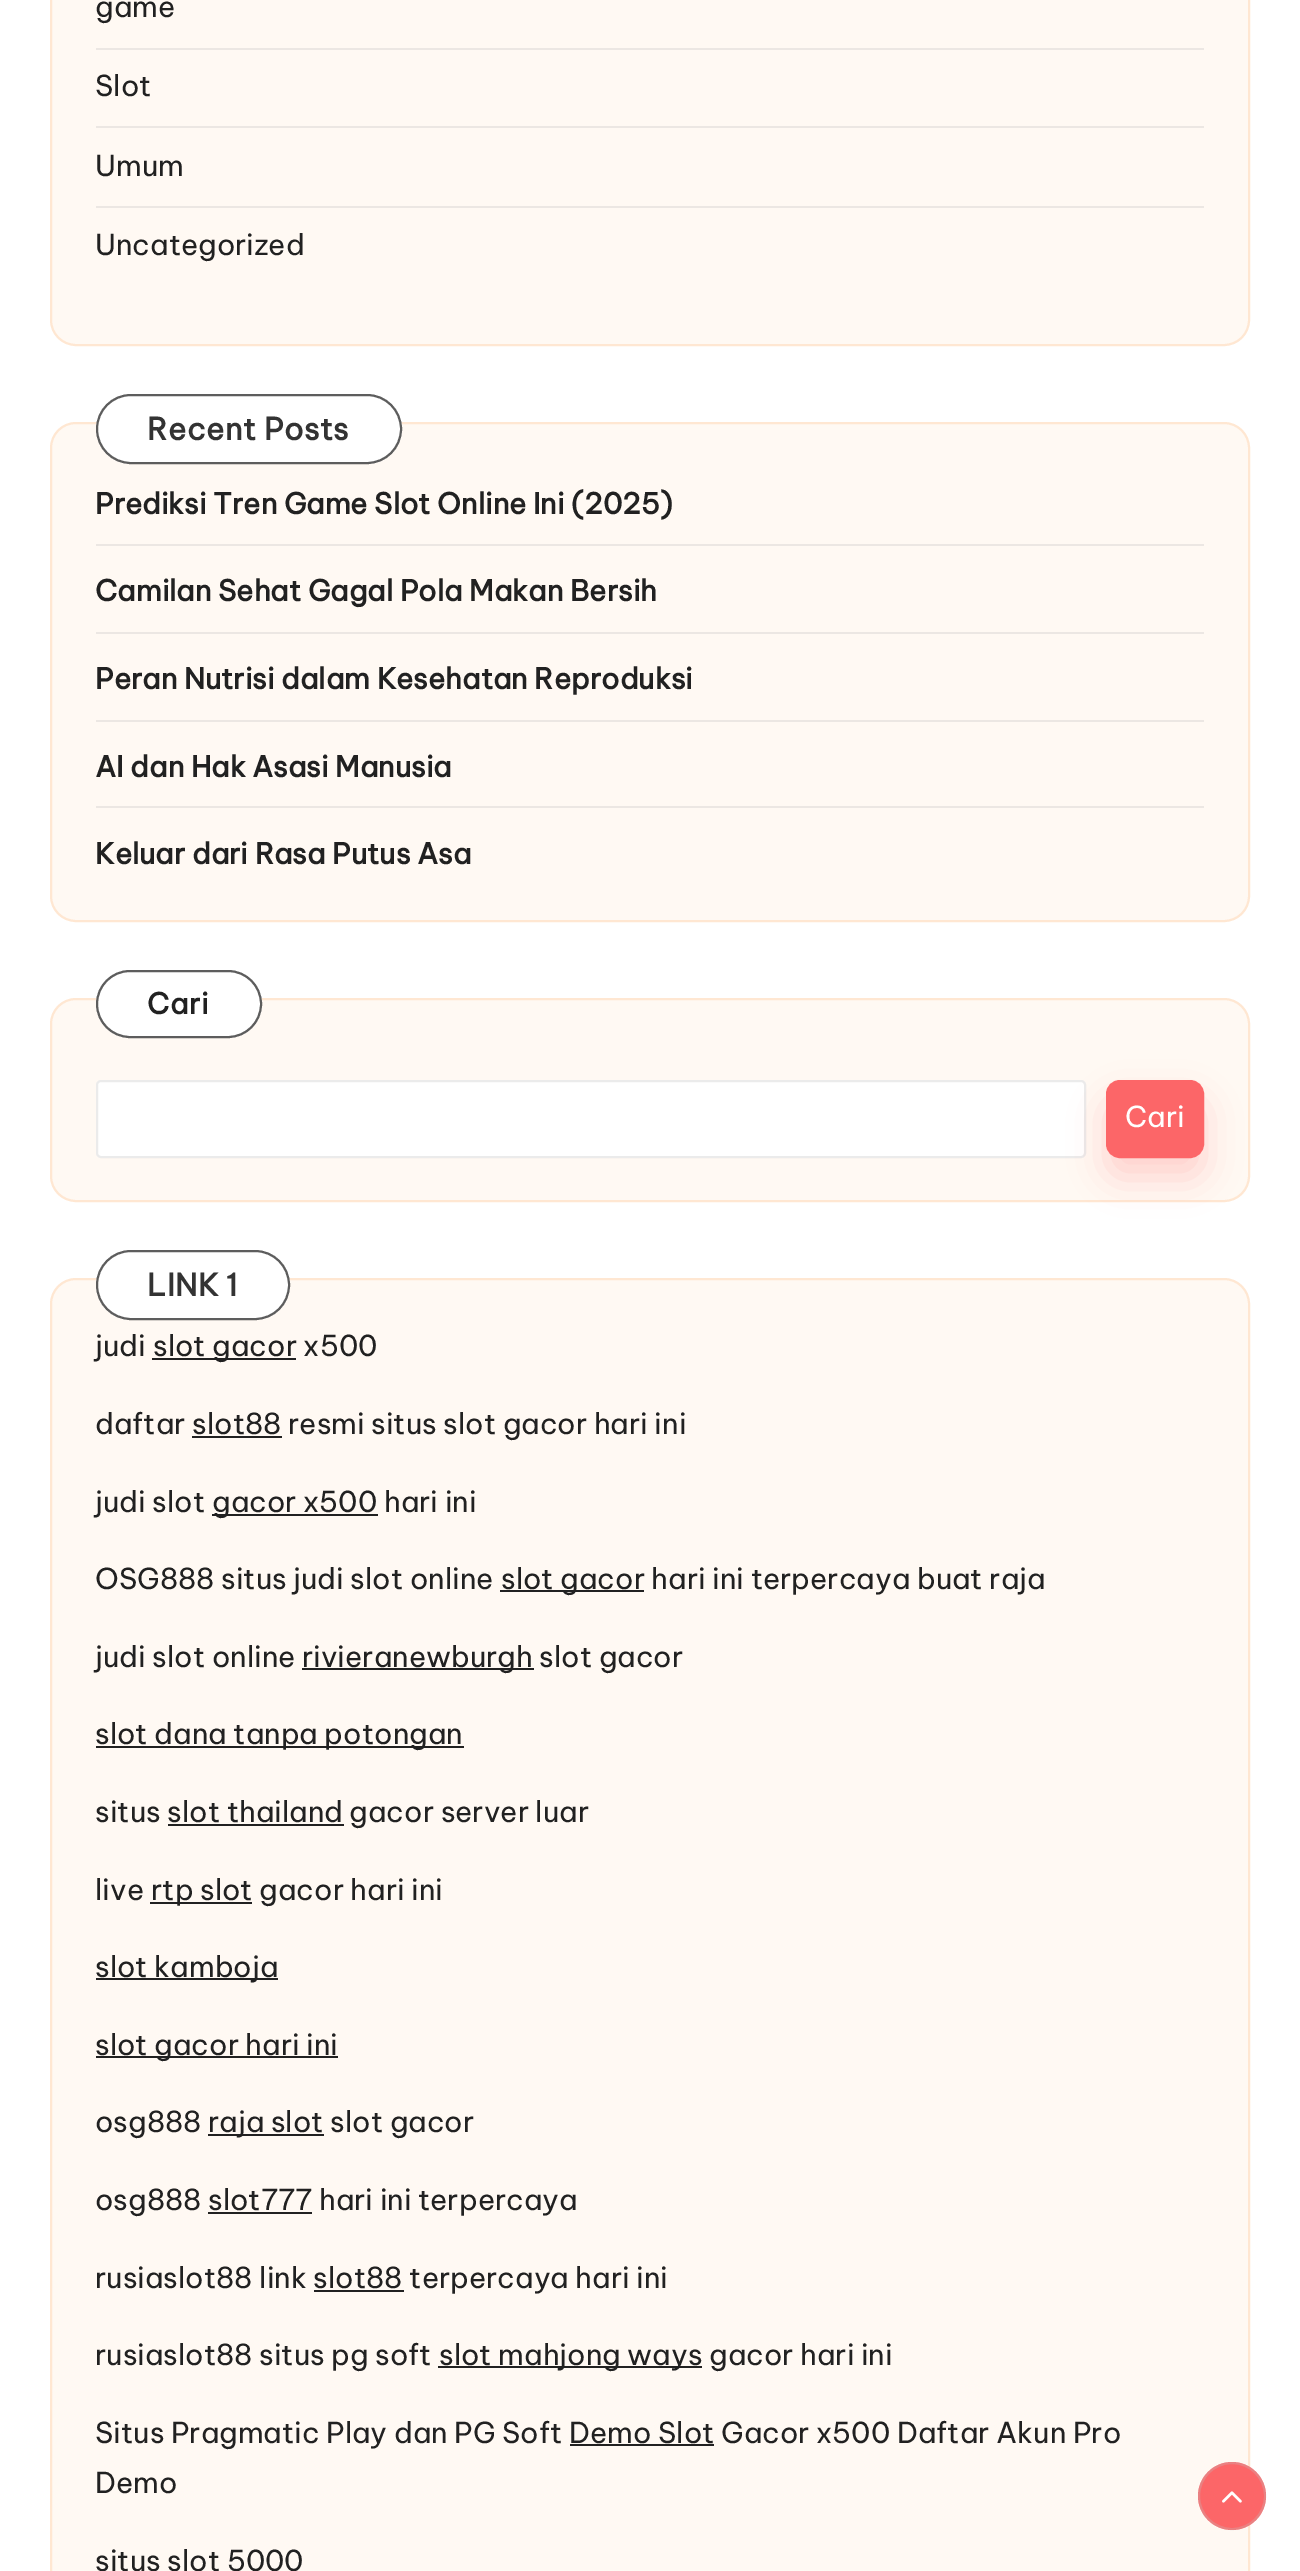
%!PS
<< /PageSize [1300 2571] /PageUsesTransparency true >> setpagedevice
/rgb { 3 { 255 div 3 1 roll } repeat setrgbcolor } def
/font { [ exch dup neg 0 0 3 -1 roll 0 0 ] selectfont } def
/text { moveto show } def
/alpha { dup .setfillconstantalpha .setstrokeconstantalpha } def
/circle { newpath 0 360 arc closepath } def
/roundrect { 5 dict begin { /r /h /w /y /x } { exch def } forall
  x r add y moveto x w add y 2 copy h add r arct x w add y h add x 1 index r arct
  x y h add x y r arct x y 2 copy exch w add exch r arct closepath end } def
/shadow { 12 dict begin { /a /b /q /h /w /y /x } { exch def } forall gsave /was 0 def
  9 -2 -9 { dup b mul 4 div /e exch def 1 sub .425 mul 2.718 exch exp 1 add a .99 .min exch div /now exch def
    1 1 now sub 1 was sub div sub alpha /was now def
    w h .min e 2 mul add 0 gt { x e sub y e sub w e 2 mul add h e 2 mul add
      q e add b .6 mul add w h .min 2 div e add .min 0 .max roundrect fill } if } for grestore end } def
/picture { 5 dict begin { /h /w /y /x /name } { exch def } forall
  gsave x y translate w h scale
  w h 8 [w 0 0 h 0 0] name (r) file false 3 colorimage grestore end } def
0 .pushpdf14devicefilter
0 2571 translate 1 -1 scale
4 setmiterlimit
255 255 255 rgb
0 0 1300 2571 rectfill
255 249 243 rgb
51 -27 1198 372 25 roundrect gsave fill grestore
255 231 210 rgb
2 setlinewidth
stroke
236 231 227 rgb
96 48 1108 2 rectfill
96 126 1108 2 rectfill
96 206 1108 2 rectfill
255 249 243 rgb
51 423 1198 498 25 roundrect gsave fill grestore
255 231 210 rgb
stroke
255 255 255 rgb
96 394 306 70 35 roundrect fill
0.75 alpha
39 39 39 rgb
97 395 304 68 34 roundrect stroke
1 alpha
236 231 227 rgb
96 544 1108 2 rectfill
96 632 1108 2 rectfill
96 720 1108 2 rectfill
96 806 1108 2 rectfill
255 249 243 rgb
51 999 1198 202 25 roundrect gsave fill grestore
255 231 210 rgb
stroke
255 255 255 rgb
96 970 166 68 34 roundrect fill
0.75 alpha
39 39 39 rgb
97 971 164 66 33 roundrect stroke
1 alpha
255 255 255 rgb
96 1080 990 78 5 roundrect fill
0.3 alpha
190 190 190 rgb
97 1081 988 76 4 roundrect stroke
1 alpha
252 102 104 rgb
1106 1100 98 78 14 18 0.27 shadow
1107 1081 96 76 13 roundrect gsave fill grestore
stroke
255 249 243 rgb
51 1279 1198 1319 25 roundrect gsave fill grestore
255 231 210 rgb
stroke
255 255 255 rgb
96 1250 194 70 35 roundrect fill
0.75 alpha
39 39 39 rgb
97 1251 192 68 34 roundrect stroke
1 alpha
33 33 33 rgb
152 1358 144 2 rectfill
192 1436 90 2 rectfill
212 1514 166 2 rectfill
500 1590 144 2 rectfill
302 1668 232 2 rectfill
96 1746 368 2 rectfill
168 1824 176 2 rectfill
150 1902 102 2 rectfill
96 1978 182 2 rectfill
96 2056 242 2 rectfill
208 2134 116 2 rectfill
208 2212 104 2 rectfill
314 2290 90 2 rectfill
438 2366 264 2 rectfill
570 2444 144 2 rectfill
252 102 104 rgb
1232 2496 34 circle fill
0.3 alpha
190 190 190 rgb
1232 2496 33 circle stroke
1 alpha
(img_01.rgb) 1222 2491 20 12 picture
/BeVietnamPro-Regular 28.8 font
33 33 33 rgb
(game) 95 17 text
(Slot) 95 96 text
(Umum) 95 176 text
(Uncategorized) 95 255 text
/BeVietnamPro-Bold 30.5 font
51 51 51 rgb
147 440 moveto 0.5 0 (Recent Posts) ashow
/BeVietnamPro-Bold 28.8 font
33 33 33 rgb
(Prediksi Tren Game Slot Online Ini \(2025\)) 95 514 text
(Camilan Sehat Gagal Pola Makan Bersih) 95 601 text
(Peran Nutrisi dalam Kesehatan Reproduksi) 95 689 text
(AI dan Hak Asasi Manusia) 95 777 text
(Keluar dari Rasa Putus Asa) 95 864 text
147 1014 moveto 0.5 0 (Cari) ashow
/BeVietnamPro-Regular 28.8 font
255 255 255 rgb
(Cari) 1125 1127 text
/BeVietnamPro-Bold 30.5 font
51 51 51 rgb
147 1296 moveto 0.5 0 (LINK 1) ashow
/BeVietnamPro-Regular 28.8 font
33 33 33 rgb
(judi) 95 1356 text
(slot gacor x500) 153 1356 text
(daftar slot88 resmi situs slot gacor hari ini) 95 1434 text
(judi slot) 95 1512 text
(gacor x500 hari ini) 212 1512 text
(OSG888 situs judi slot online) 95 1589 text
(slot gacor hari ini terpercaya buat raja) 501 1589 text
(judi slot online) 95 1667 text
(rivieranewburgh slot gacor) 302 1667 text
(slot dana tanpa potongan) 95 1744 text
(situs slot thailand gacor server luar) 95 1822 text
(live) 95 1900 text
(rtp slot gacor hari ini) 151 1900 text
(slot kamboja) 95 1977 text
(slot gacor hari ini) 95 2055 text
(osg888) 95 2132 text
(raja slot slot gacor) 208 2132 text
(osg888 slot777 hari ini terpercaya) 95 2210 text
(rusiaslot88 link slot88 terpercaya hari ini) 95 2288 text
(rusiaslot88 situs pg soft) 95 2365 text
(slot mahjong ways gacor hari ini) 439 2365 text
(Situs Pragmatic Play dan PG Soft) 95 2443 text
(Demo Slot Gacor x500 Daftar Akun Pro) 569 2443 text
(Demo) 95 2493 text
(situs slot 5000) 95 2571 text
.poppdf14devicefilter showpage
